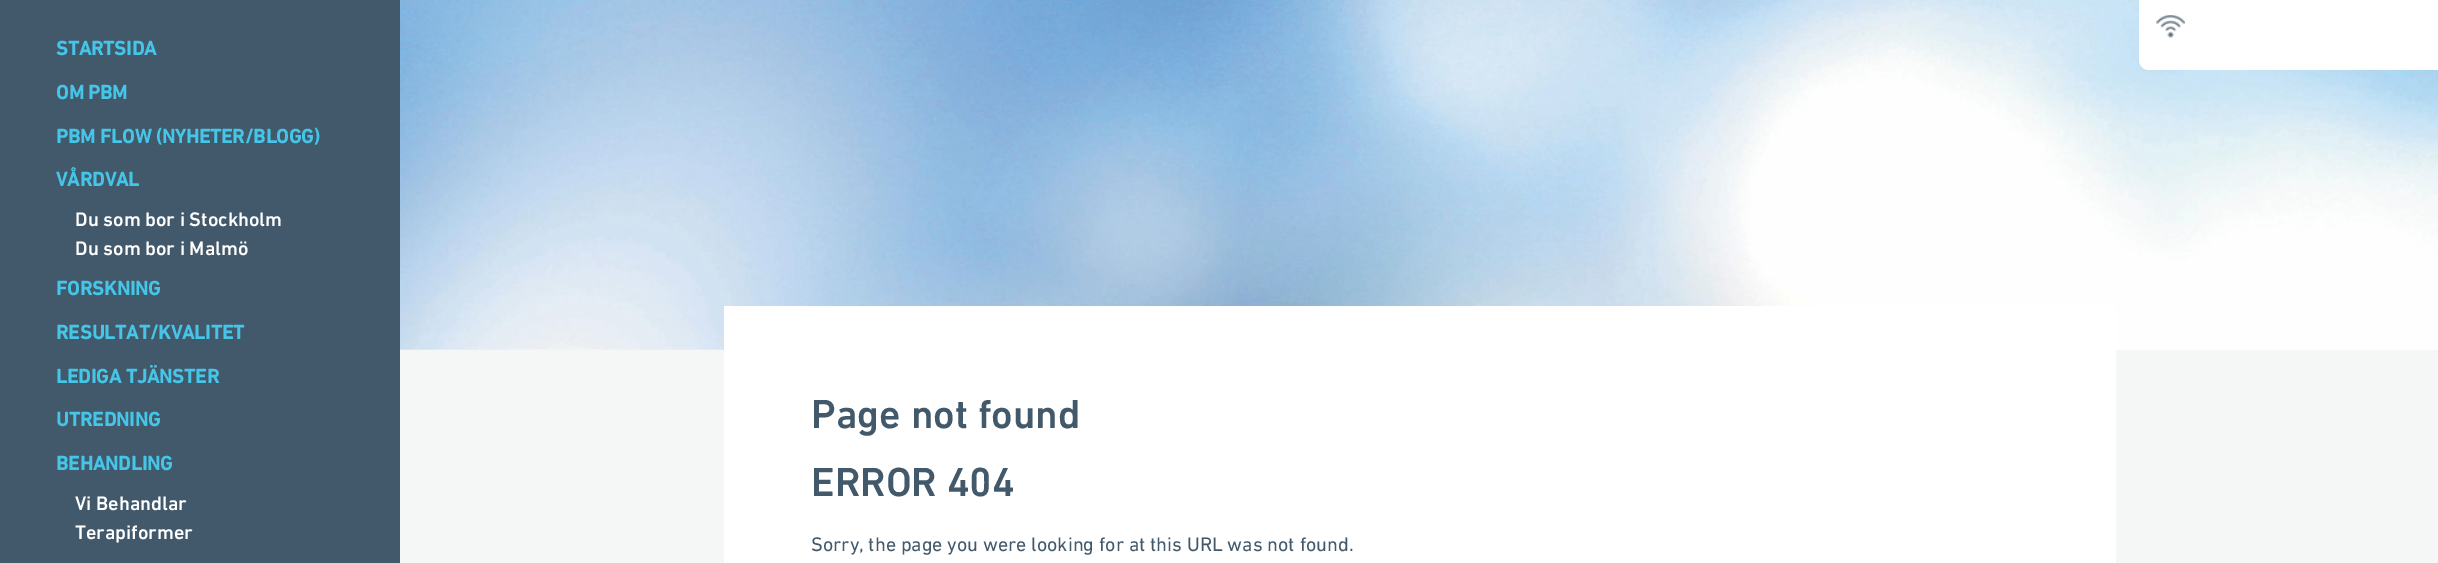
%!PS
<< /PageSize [2438 563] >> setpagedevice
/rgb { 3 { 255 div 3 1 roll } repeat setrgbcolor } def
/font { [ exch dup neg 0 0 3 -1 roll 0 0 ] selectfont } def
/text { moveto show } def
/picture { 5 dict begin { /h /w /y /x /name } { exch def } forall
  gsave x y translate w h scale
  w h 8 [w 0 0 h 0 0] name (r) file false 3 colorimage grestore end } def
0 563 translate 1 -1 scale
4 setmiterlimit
255 255 255 rgb
0 0 2438 563 rectfill
(img_01.rgb) 400 0 2038 350 picture
65 89 107 rgb
0 0 400 563 rectfill
255 255 255 rgb
2139 0 moveto 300 0 rlineto 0 70 rlineto -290 0 rlineto -5.5 0 -10 -4.5 -10 -10 rcurveto closepath fill
(img_02.rgb) 2156 15 29 23 picture
245 246 246 rgb
400 350 2038 213 rectfill
255 255 255 rgb
724 306 1392 257 rectfill
/DINNext-Bold 20 font
69 198 232 rgb
(STARTSIDA) 56 55 text
(OM PBM) 56 99 text
(PBM FLOW \(NYHETER/BLOGG\)) 56 143 text
(VÅRDVAL) 56 186 text
/DINNext-Medium 20 font
255 255 255 rgb
(Du som bor i Stockholm) 75 226 text
(Du som bor i Malmö) 75 255 text
/DINNext-Bold 20 font
69 198 232 rgb
(FORSKNING) 56 295 text
(RESULTAT/KVALITET) 56 339 text
(LEDIGA TJÄNSTER) 56 383 text
(UTREDNING) 56 426 text
(BEHANDLING) 56 470 text
/DINNext-Medium 20 font
255 255 255 rgb
(Vi Behandlar) 75 510 text
(Terapiformer) 75 539 text
/DINNext-Medium 41.25 font
65 89 107 rgb
(Page not found) 811 428 text
(ERROR 404) 811 496 text
/DINNext-Regular 20 font
(Sorry, the page you were looking for at this URL was not found.) 811 551 text
showpage
